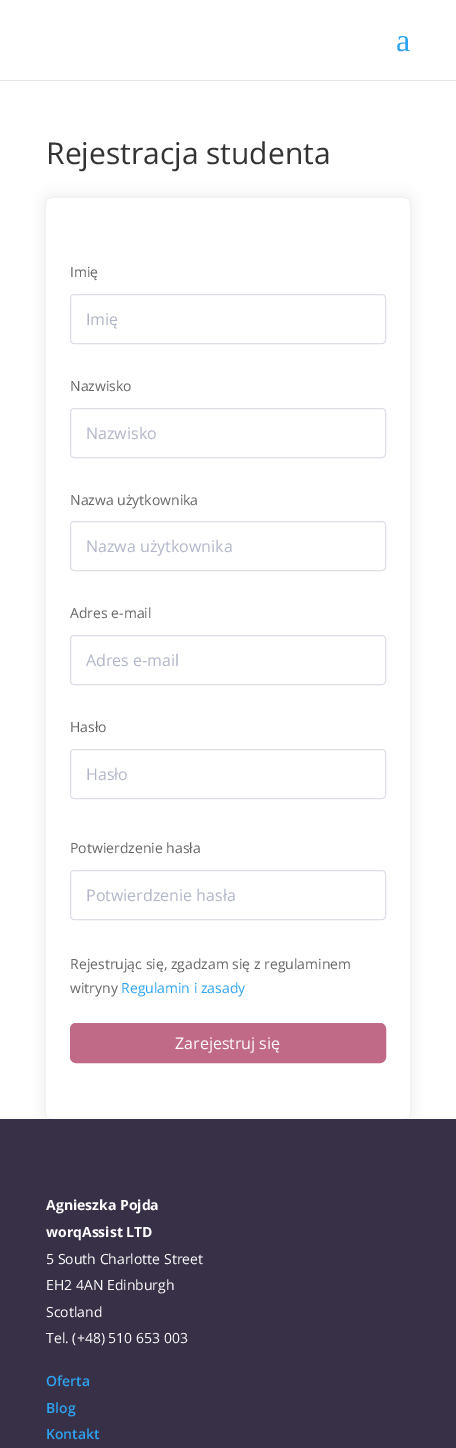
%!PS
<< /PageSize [456 1448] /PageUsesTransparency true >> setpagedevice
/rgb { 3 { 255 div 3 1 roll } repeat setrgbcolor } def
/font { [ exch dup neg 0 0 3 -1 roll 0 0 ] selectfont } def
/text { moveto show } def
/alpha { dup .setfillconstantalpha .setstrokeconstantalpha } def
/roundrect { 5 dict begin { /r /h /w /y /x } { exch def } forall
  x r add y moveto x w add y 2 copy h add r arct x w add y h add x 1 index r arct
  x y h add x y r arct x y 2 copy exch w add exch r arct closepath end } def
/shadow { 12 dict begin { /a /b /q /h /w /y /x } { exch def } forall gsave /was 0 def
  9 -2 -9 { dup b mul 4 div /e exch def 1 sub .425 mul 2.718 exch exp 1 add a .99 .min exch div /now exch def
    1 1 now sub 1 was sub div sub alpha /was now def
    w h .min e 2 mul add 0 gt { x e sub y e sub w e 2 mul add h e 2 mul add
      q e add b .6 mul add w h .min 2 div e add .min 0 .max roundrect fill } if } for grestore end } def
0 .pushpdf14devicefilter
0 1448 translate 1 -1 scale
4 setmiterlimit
255 255 255 rgb
0 0 456 1448 rectfill
230 230 230 rgb
0 80 456 1 rectfill
gsave
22 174 moveto 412 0 rlineto 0 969 rlineto -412 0 rlineto closepath 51 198 moveto 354 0 rlineto 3 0 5 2 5 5 rcurveto 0 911 rlineto 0 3 -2 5 -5 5 rcurveto -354 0 rlineto -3 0 -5 -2 -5 -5 rcurveto 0 -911 rlineto 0 -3 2 -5 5 -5 rcurveto closepath eoclip newpath
0 0 0 rgb
46 198 364 921 5 7.5 0.1 shadow
grestore
220 223 229 rgb
70.5 294.5 315 49 3.5 roundrect stroke
70.5 408.5 315 49 3.5 roundrect stroke
70.5 521.5 315 49 3.5 roundrect stroke
70.5 635.5 315 49 3.5 roundrect stroke
70.5 749.5 315 49 3.5 roundrect stroke
70.5 870.5 315 49 3.5 roundrect stroke
193 106 135 rgb
70.5 1023.5 315 39 5.5 roundrect gsave fill grestore
stroke
55 48 70 rgb
0 1119 456 329 rectfill
/LiberationSerif-Regular 32 font
46 163 242 rgb
(a) 396 51 text
/OpenSans-Regular 30 font
51 51 51 rgb
(Rejestracja studenta) 46 164 text
/OpenSans-Regular 14 font
102 102 102 rgb
(Imię) 70 277 text
/OpenSans-Regular 16 font
176 182 200 rgb
(Imię) 86 325 text
/OpenSans-Regular 14 font
102 102 102 rgb
(Nazwisko) 70 391 text
/OpenSans-Regular 16 font
176 182 200 rgb
(Nazwisko) 86 439 text
/OpenSans-Regular 14 font
102 102 102 rgb
(Nazwa użytkownika) 70 505 text
/OpenSans-Regular 16 font
176 182 200 rgb
(Nazwa użytkownika) 86 552 text
/OpenSans-Regular 14 font
102 102 102 rgb
(Adres e-mail) 70 618 text
/OpenSans-Regular 16 font
176 182 200 rgb
(Adres e-mail) 86 666 text
/OpenSans-Regular 14 font
102 102 102 rgb
(Hasło) 70 732 text
/OpenSans-Regular 16 font
176 182 200 rgb
(Hasło) 86 780 text
/OpenSans-Regular 14 font
102 102 102 rgb
(Potwierdzenie hasła) 70 853 text
/OpenSans-Regular 16 font
176 182 200 rgb
(Potwierdzenie hasła) 86 901 text
/OpenSans-Regular 14 font
102 102 102 rgb
(Rejestrując się, zgadzam się z regulaminem) 70 969 text
(witryny) 70 993 text
46 163 242 rgb
(Regulamin i zasady) 121 993 text
/OpenSans-Regular 16 font
255 255 255 rgb
(Zarejestruj się) 175 1049 text
/OpenSans-Bold 14 font
(Agnieszka Pojda) 46 1210 text
(worqAssist LTD) 46 1237 text
/OpenSans-Regular 14 font
(5 South Charlotte Street) 46 1264 text
(EH2 4AN Edinburgh) 46 1290 text
(Scotland) 46 1317 text
(Tel. \(+48\) 510 653 003) 46 1343 text
/OpenSans-SemiBold 14 font
46 163 242 rgb
(Oferta) 46 1386 text
(Blog) 46 1413 text
(Kontakt) 46 1439 text
.poppdf14devicefilter showpage
